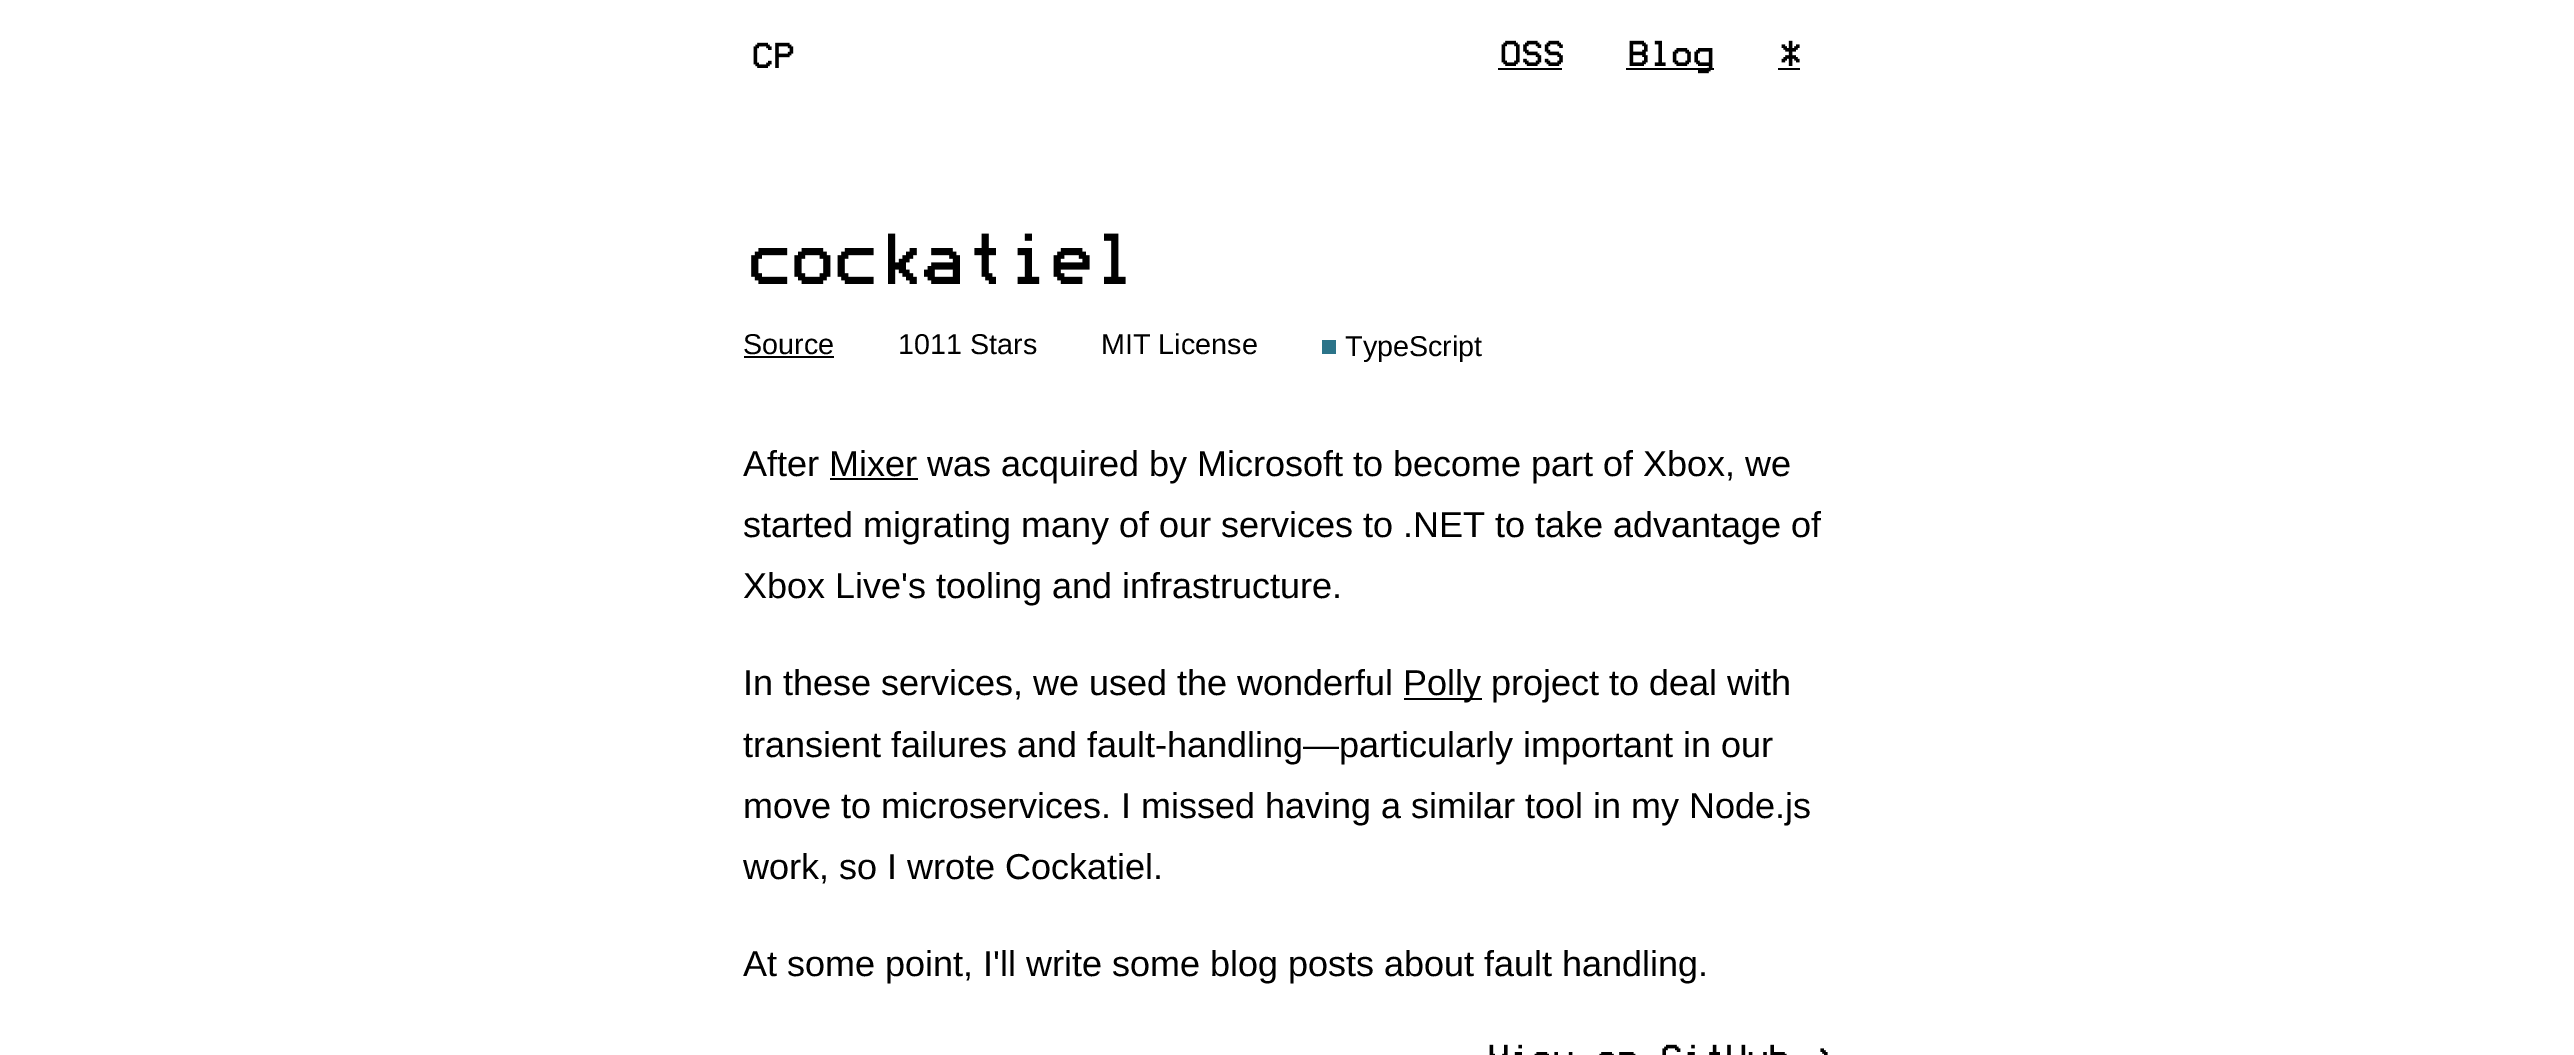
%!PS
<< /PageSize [2574 1055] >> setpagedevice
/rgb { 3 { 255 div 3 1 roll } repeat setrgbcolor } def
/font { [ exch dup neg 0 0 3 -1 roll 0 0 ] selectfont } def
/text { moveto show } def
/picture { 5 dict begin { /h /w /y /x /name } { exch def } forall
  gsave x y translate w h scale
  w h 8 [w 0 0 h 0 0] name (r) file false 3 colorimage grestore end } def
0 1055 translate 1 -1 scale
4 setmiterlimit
255 255 255 rgb
0 0 2574 1055 rectfill
(img_01.rgb) 753 42 41 26 picture
(img_02.rgb) 1501 40 62 26 picture
0 0 0 rgb
1498 68 64 2 rectfill
1626 68 88 2 rectfill
(img_03.rgb) 1629 40 84 34 picture
(img_04.rgb) 1781 40 19 26 picture
1778 68 22 2 rectfill
(img_05.rgb) 751 233 375 51 picture
744 356 90 2 rectfill
43 116 137 rgb
1322 340 14 14 rectfill
0 0 0 rgb
830 478 88 2 rectfill
1404 698 78 2 rectfill
(img_06.rgb) 1489 1044 298 11 picture
(img_07.rgb) 1820 1048 8 7 picture
/LiberationSans-Regular 28.75 font
(Source) 743 354 text
(1011 Stars) 898 354 text
(MIT License) 1101 354 text
(TypeScript) 1345 356 text
/LiberationSans-Regular 36 font
(After Mixer was acquired by Microsoft to become part of Xbox, we) 743 476 text
(started migrating many of our services to .NET to take advantage of) 743 537 text
(Xbox Live's tooling and infrastructure.) 743 598 text
(In these services, we used the wonderful) 743 695 text
(Polly project to deal with) 1403 695 text
(transient failures and fault-handling—particularly important in our) 743 757 text
(move to microservices. I missed having a similar tool in my Node.js) 743 818 text
(work, so I wrote Cockatiel.) 743 879 text
(At some point, I'll write some blog posts about fault handling.) 743 976 text
showpage
